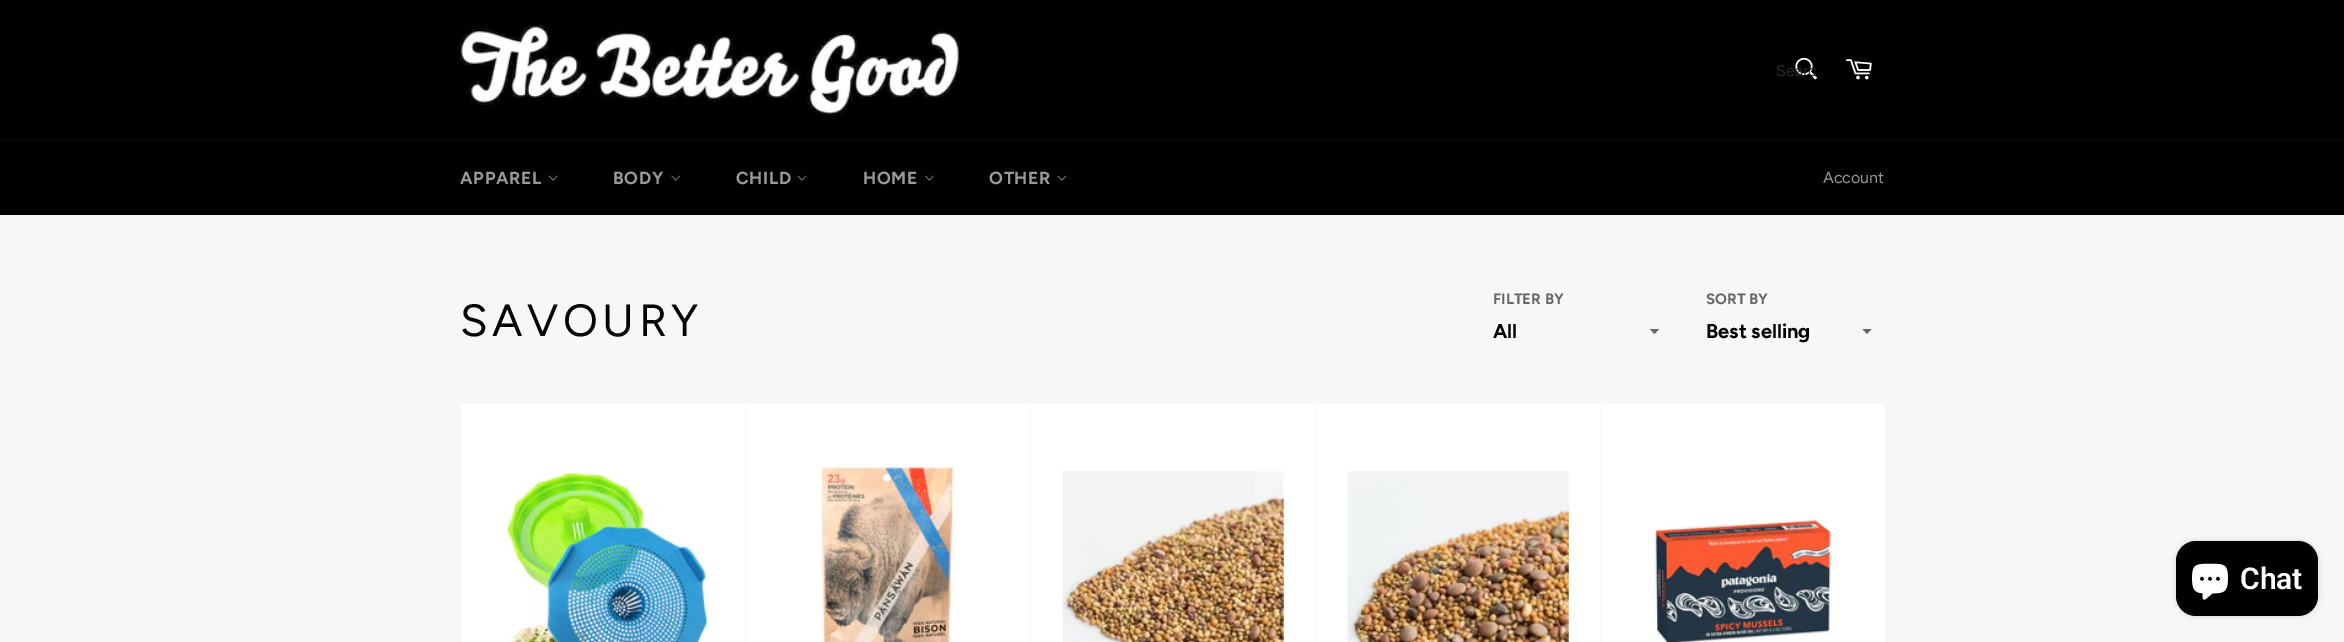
%!PS
<< /PageSize [2344 642] /PageUsesTransparency true >> setpagedevice
/rgb { 3 { 255 div 3 1 roll } repeat setrgbcolor } def
/font { [ exch dup neg 0 0 3 -1 roll 0 0 ] selectfont } def
/text { moveto show } def
/alpha { dup .setfillconstantalpha .setstrokeconstantalpha } def
/roundrect { 5 dict begin { /r /h /w /y /x } { exch def } forall
  x r add y moveto x w add y 2 copy h add r arct x w add y h add x 1 index r arct
  x y h add x y r arct x y 2 copy exch w add exch r arct closepath end } def
/shadow { 12 dict begin { /a /b /q /h /w /y /x } { exch def } forall gsave /was 0 def
  9 -2 -9 { dup b mul 4 div /e exch def 1 sub .425 mul 2.718 exch exp 1 add a .99 .min exch div /now exch def
    1 1 now sub 1 was sub div sub alpha /was now def
    w h .min e 2 mul add 0 gt { x e sub y e sub w e 2 mul add h e 2 mul add
      q e add b .6 mul add w h .min 2 div e add .min 0 .max roundrect fill } if } for grestore end } def
/picture { 5 dict begin { /h /w /y /x /name } { exch def } forall
  gsave x y translate w h scale
  w h 8 [w 0 0 h 0 0] name (r) file false 3 colorimage grestore end } def
0 .pushpdf14devicefilter
0 642 translate 1 -1 scale
4 setmiterlimit
247 247 247 rgb
0 0 2344 642 rectfill
0 0 0 rgb
0 0 2344 140 rectfill
(img_01.rgb) 460 25 500 90 picture
(img_02.rgb) 1795 57 22 23 picture
(img_03.rgb) 1846 59 26 21 picture
0 141 2344 74 rectfill
13 13 13 rgb
0 140 2344 1 rectfill
(img_04.rgb) 548 175 10 6 picture
(img_05.rgb) 671 175 9 6 picture
(img_06.rgb) 797 175 10 6 picture
(img_07.rgb) 925 175 9 6 picture
(img_06.rgb) 1057 175 10 6 picture
102 102 102 rgb
1650 329 moveto 4.5 5 rlineto 4.5 -5 rlineto closepath fill
1862.5 329 moveto 4.5 5 rlineto 4.5 -5 rlineto closepath fill
255 255 255 rgb
461 404 284 238 rectfill
(img_08.rgb) 502 471 207 171 picture
746 404 284 238 rectfill
(img_09.rgb) 821 464 134 178 picture
1031 404 284 238 rectfill
(img_10.rgb) 1062 471 222 171 picture
1316 404 284 238 rectfill
(img_11.rgb) 1347 471 222 171 picture
1601 404 284 238 rectfill
(img_12.rgb) 1652 519 186 123 picture
0 0 0 rgb
2176 541 142 75 20 3 0.15 shadow
2176 541 142 75 20 roundrect fill
(img_13.rgb) 2192 563 36 37 picture
gsave
1776 61 40 19 rectclip
/Figtree-Regular 16 font
42 42 42 rgb
(Searc) 1776 76 text
grestore
/Figtree-Bold 17.5 font
153 153 153 rgb
460 184 moveto 0.75 0 (APPAREL) ashow
613 184 moveto 0.75 0 (BODY) ashow
736 184 moveto 0.75 0 (CHILD) ashow
863 184 moveto 0.75 0 (HOME) ashow
989 184 moveto 0.75 0 (OTHER) ashow
/Figtree-Regular 16 font
(Account) 1823 183 text
/Figtree-Regular 45 font
3 3 3 rgb
460 336 moveto 4.5 0 (SAVOURY) ashow
/Figtree-Bold 15 font
102 102 102 rgb
(FILTER BY) 1493 304 text
/Figtree-Bold 20 font
3 3 3 rgb
(All) 1493 338 text
/Figtree-Bold 15 font
102 102 102 rgb
(SORT BY) 1706 304 text
/Figtree-Bold 20 font
3 3 3 rgb
(Best selling) 1706 338 text
/Roboto-SemiBold 30 font
255 255 255 rgb
(Chat) 2240 589 text
.poppdf14devicefilter showpage
